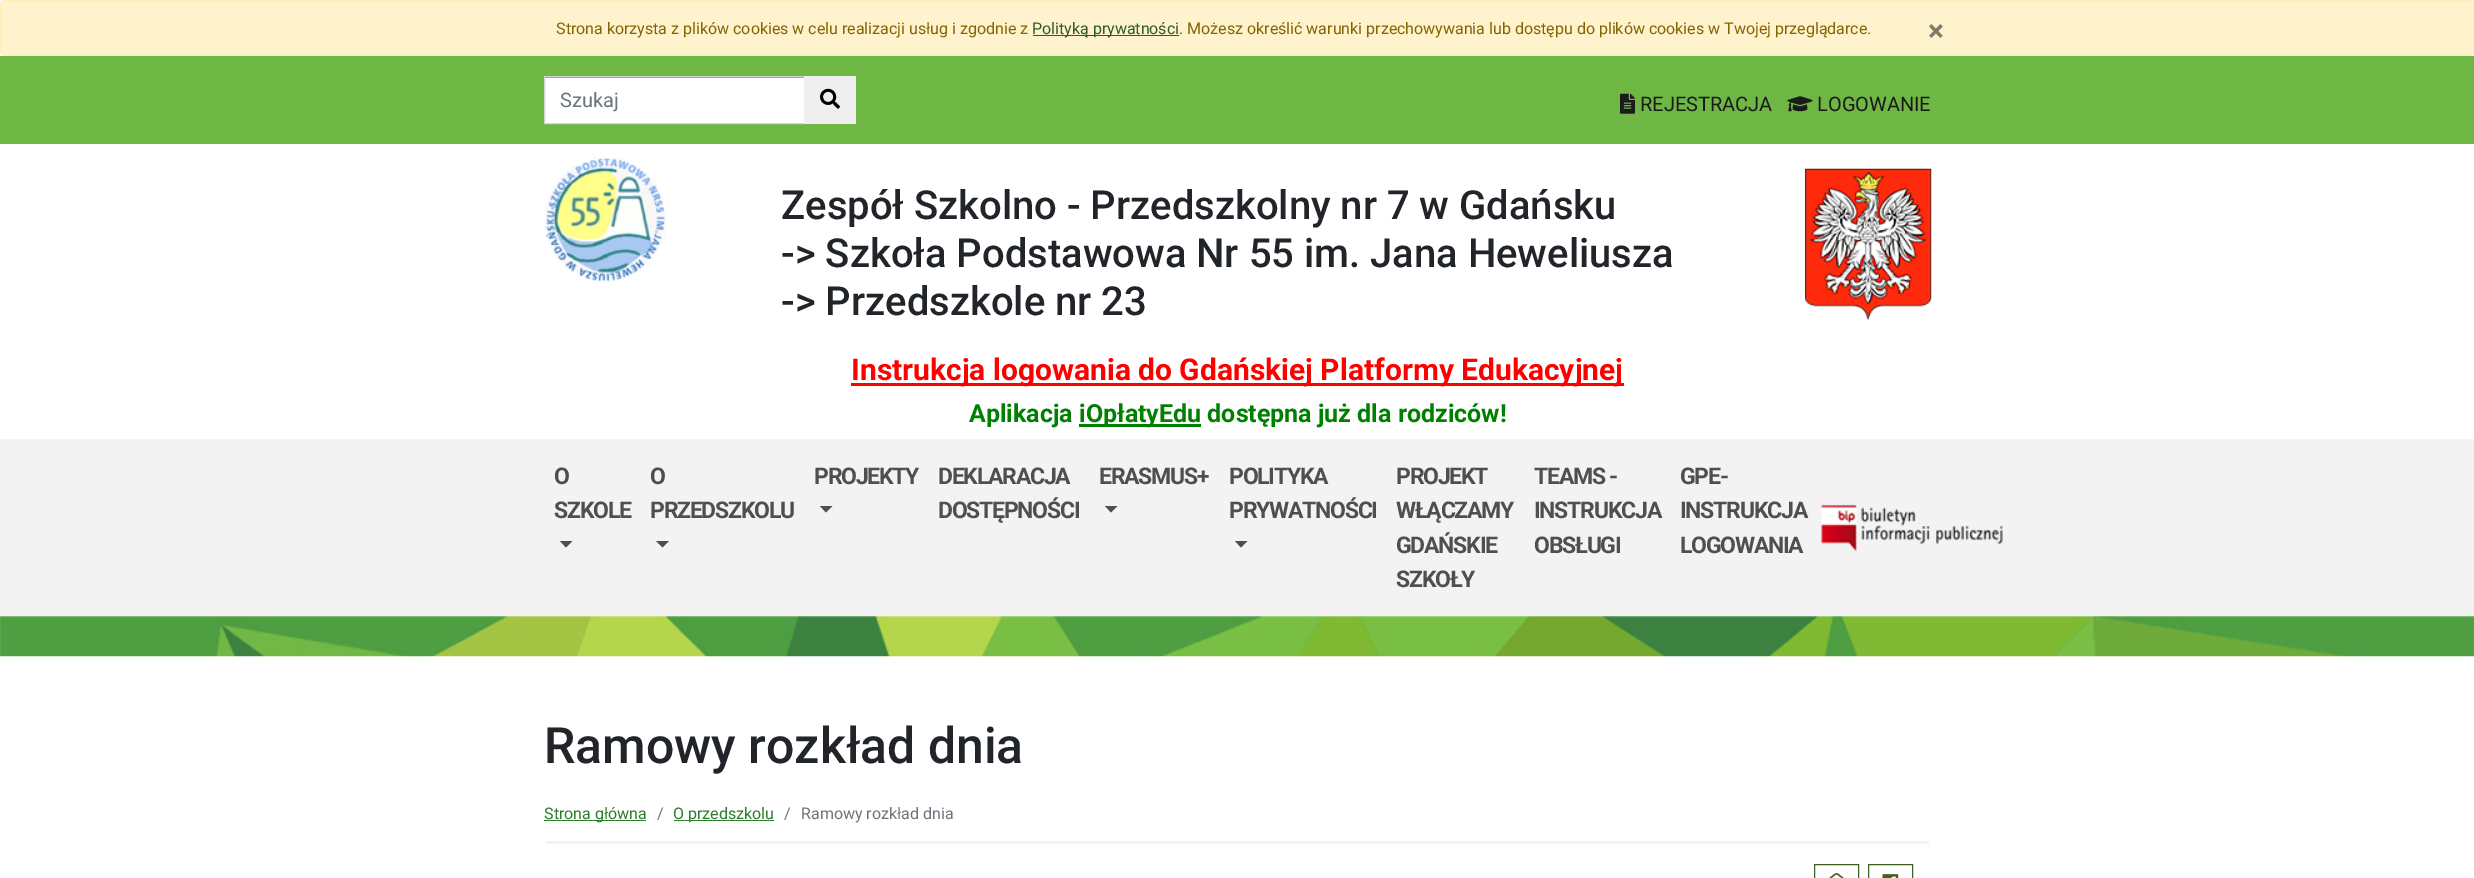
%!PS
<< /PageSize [2474 878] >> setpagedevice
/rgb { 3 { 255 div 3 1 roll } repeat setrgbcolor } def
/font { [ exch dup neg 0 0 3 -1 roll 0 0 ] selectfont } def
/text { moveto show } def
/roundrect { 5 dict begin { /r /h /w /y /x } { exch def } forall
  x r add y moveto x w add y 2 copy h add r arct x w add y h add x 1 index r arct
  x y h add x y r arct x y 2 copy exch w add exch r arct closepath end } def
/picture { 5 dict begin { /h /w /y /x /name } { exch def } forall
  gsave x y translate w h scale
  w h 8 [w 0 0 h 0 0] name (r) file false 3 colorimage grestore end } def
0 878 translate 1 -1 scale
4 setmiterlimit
255 255 255 rgb
0 0 2474 878 rectfill
255 243 205 rgb
0.5 0.5 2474 55 4.5 roundrect gsave fill grestore
255 238 186 rgb
stroke
46 92 38 rgb
1033 35 146 1 rectfill
110 183 68 rgb
0 56 2474 88 rectfill
255 255 255 rgb
545 78 259 45 rectfill
206 212 218 rgb
544.5 76.5 260 47 rectstroke
239 239 239 rgb
804 76 52 48 rectfill
(img_01.rgb) 820 88 20 21 picture
(img_02.rgb) 1620 93 15 21 picture
(img_03.rgb) 1787 96 26 16 picture
(img_04.rgb) 544 157 122 125 picture
(img_05.rgb) 1805 168 127 152 picture
255 0 0 rgb
851 383 773 3 rectfill
0 128 0 rgb
1079 424 122 3 rectfill
243 243 243 rgb
0 439 2474 177 rectfill
79 79 79 rgb
560 541 moveto 12.5 0 rlineto -6.5 6.5 rlineto closepath fill
656 541 moveto 13 0 rlineto -6.5 6.5 rlineto closepath fill
820 506 moveto 12.5 0 rlineto -6.5 6.5 rlineto closepath fill
1105 506 moveto 12.5 0 rlineto -6.5 6.5 rlineto closepath fill
1235 541 moveto 12.5 0 rlineto -6.5 6.5 rlineto closepath fill
(img_06.rgb) 1821 504 182 48 picture
(img_07.rgb) 0 616 2474 41 picture
243 243 243 rgb
546 841 1383 3 rectfill
45 125 45 rgb
544 820 102 1 rectfill
674 820 100 1 rectfill
63 98 36 rgb
1814.5 864.5 44 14 rectstroke
(img_08.rgb) 1829 873 15 5 picture
1868.5 864.5 44 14 rectstroke
(img_09.rgb) 1882 874 17 4 picture
/Roboto-Regular 16 font
133 100 4 rgb
(Strona korzysta z plików cookies w celu realizacji usług i zgodnie z) 556 34 text
46 92 38 rgb
(Polityką prywatności) 1032 34 text
133 100 4 rgb
(. Możesz określić warunki przechowywania lub dostępu do plików cookies w Twojej przeglądarce.) 1179 34 text
/Roboto-Bold 30 font
128 122 103 rgb
(×) 1928 41 text
/Roboto-Regular 20 font
108 117 125 rgb
(Szukaj) 560 107 text
26 26 26 rgb
(REJESTRACJA) 1640 111 text
(LOGOWANIE) 1817 111 text
/Roboto-Medium 40 font
33 37 41 rgb
(Zespół Szkolno - Przedszkolny nr 7 w Gdańsku) 781 219 text
(-> Szkoła Podstawowa Nr 55 im. Jana Heweliusza) 781 267 text
(-> Przedszkole nr 23) 781 315 text
/Roboto-Bold 30 font
255 0 0 rgb
(Instrukcja logowania do Gdańskiej Platformy Edukacyjnej) 851 380 text
/Roboto-Bold 25 font
0 128 0 rgb
(Aplikacja) 969 422 text
(iOpłatyEdu dostępna już dla rodziców!) 1079 422 text
/Roboto-Bold 23 font
79 79 79 rgb
554 484 moveto -1.25 0 (O) ashow
554 518 moveto -1.25 0 (SZKOLE) ashow
650 484 moveto -1.25 0 (O) ashow
650 518 moveto -1.25 0 (PRZEDSZKOLU) ashow
814 484 moveto -1.25 0 (PROJEKTY) ashow
938 484 moveto -1.25 0 (DEKLARACJA) ashow
938 518 moveto -1.25 0 (DOSTĘPNOŚCI) ashow
1099 484 moveto -1.25 0 (ERASMUS+) ashow
1229 484 moveto -1.25 0 (POLITYKA) ashow
1229 518 moveto -1.25 0 (PRYWATNOŚCI) ashow
1396 484 moveto -1.25 0 (PROJEKT) ashow
1396 518 moveto -1.25 0 (WŁĄCZAMY) ashow
1396 553 moveto -1.25 0 (GDAŃSKIE) ashow
1396 587 moveto -1.25 0 (SZKOŁY) ashow
1534 484 moveto -1.25 0 (TEAMS -) ashow
1534 518 moveto -1.25 0 (INSTRUKCJA) ashow
1534 553 moveto -1.25 0 (OBSŁUGI) ashow
1680 484 moveto -1.25 0 (GPE-) ashow
1680 518 moveto -1.25 0 (INSTRUKCJA) ashow
1680 553 moveto -1.25 0 (LOGOWANIA) ashow
/Roboto-Medium 50 font
33 37 41 rgb
(Ramowy rozkład dnia) 544 763 text
/Roboto-Regular 16 font
45 125 45 rgb
(Strona główna) 544 819 text
108 117 125 rgb
(/) 657 819 text
45 125 45 rgb
(O przedszkolu) 673 819 text
108 117 125 rgb
(/) 784 819 text
(Ramowy rozkład dnia) 801 819 text
showpage
